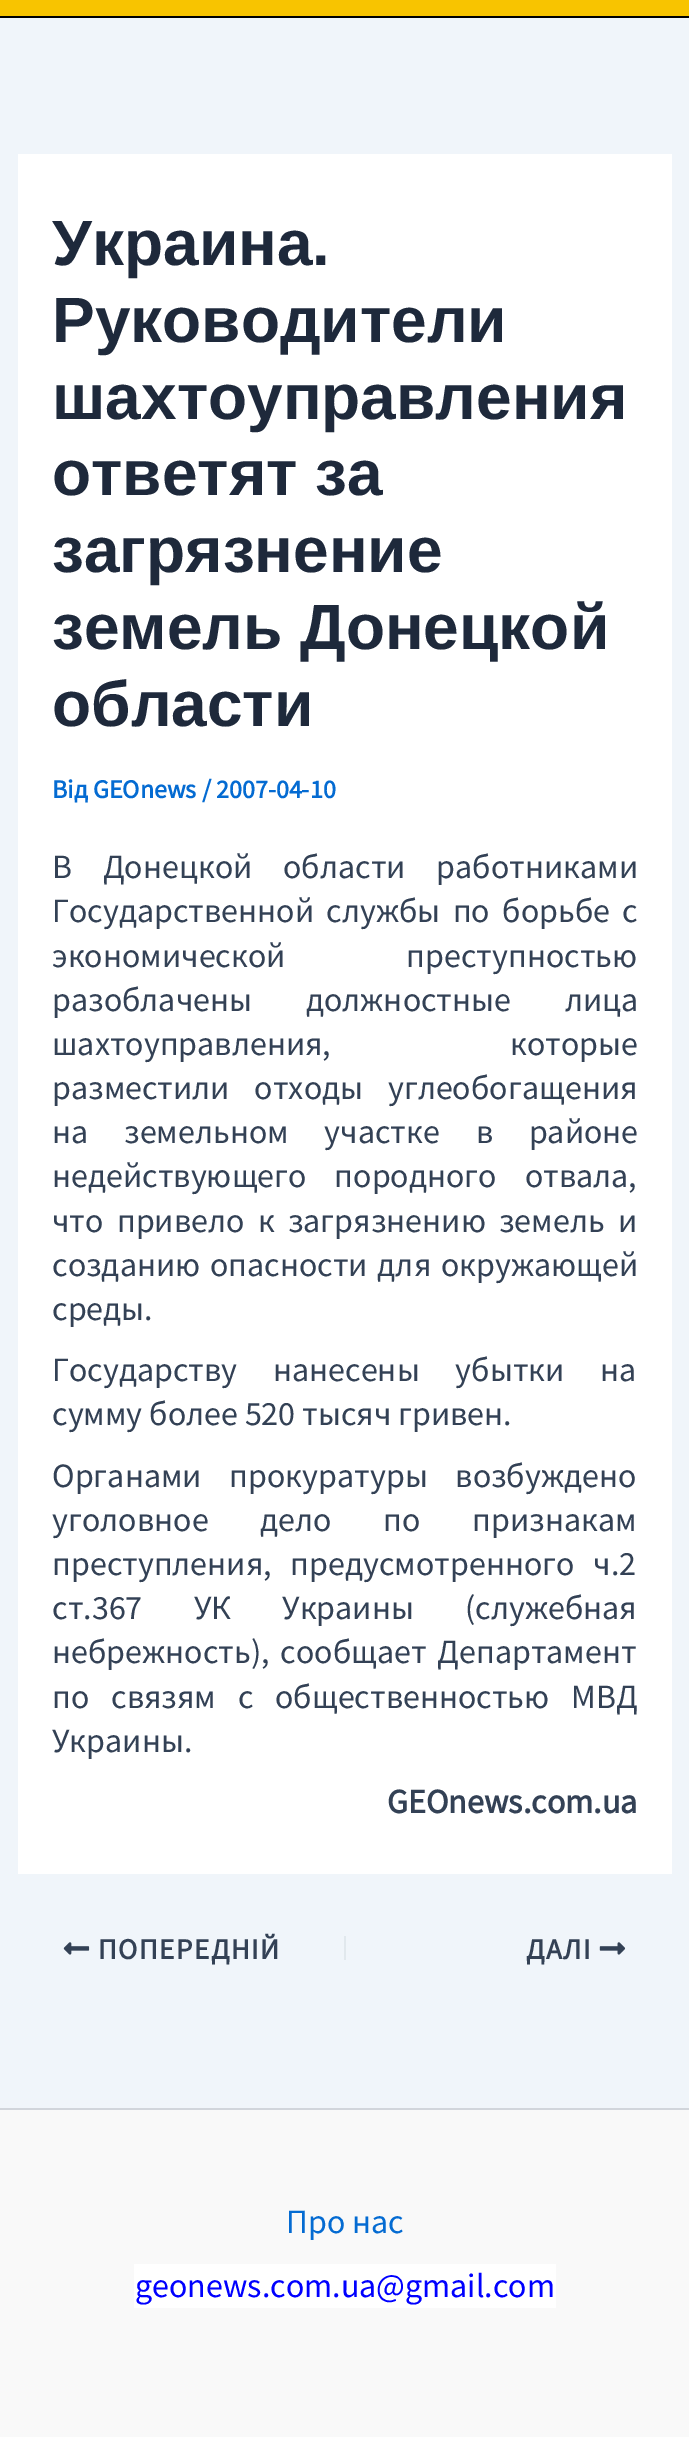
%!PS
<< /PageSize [689 2437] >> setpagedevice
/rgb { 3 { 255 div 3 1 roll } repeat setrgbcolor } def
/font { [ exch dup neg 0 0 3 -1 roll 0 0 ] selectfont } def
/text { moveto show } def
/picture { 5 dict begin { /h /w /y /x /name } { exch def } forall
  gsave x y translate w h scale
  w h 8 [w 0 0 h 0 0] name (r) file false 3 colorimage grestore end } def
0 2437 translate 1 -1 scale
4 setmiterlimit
240 245 250 rgb
0 0 689 2437 rectfill
248 196 0 rgb
0 0 689 16 rectfill
0 0 0 rgb
0 16 689 2 rectfill
255 255 255 rgb
18 154 654 1720 rectfill
(img_01.rgb) 63 1942 27 13 picture
225 232 237 rgb
344 1936 2 24 rectfill
(img_02.rgb) 599 1942 27 13 picture
249 249 249 rgb
0 2110 689 327 rectfill
209 213 219 rgb
0 2108 689 2 rectfill
255 255 255 rgb
134 2264 422 44 rectfill
/LiberationSans-Bold 64 font
30 41 59 rgb
(Украина.) 52 265 text
(Руководители) 52 342 text
(шахтоуправления) 52 419 text
(ответят за) 52 495 text
(загрязнение) 52 572 text
(земель Донецкой) 52 649 text
(области) 52 726 text
/SourceSansPro-Bold 26 font
4 107 210 rgb
(Від GEOnews / 2007-04-10) 52 798 text
/SourceSansPro-Regular 34 font
51 65 85 rgb
52 878 moveto 24 0 32 (В Донецкой области работниками) widthshow
52 922 moveto 5.5 0 32 (Государственной службы по борьбе с) widthshow
52 967 moveto 114 0 32 (экономической преступностью) widthshow
52 1011 moveto 47 0 32 (разоблачены должностные лица) widthshow
52 1055 moveto 172 0 32 (шахтоуправления, которые) widthshow
52 1099 moveto 18 0 32 (разместили отходы углеобогащения) widthshow
52 1143 moveto 29 0 32 (на земельном участке в районе) widthshow
52 1187 moveto 21 0 32 (недействующего породного отвала,) widthshow
52 1232 moveto 6.5 0 32 (что привело к загрязнению земель и) widthshow
52 1276 moveto 3 0 32 (созданию опасности для окружающей) widthshow
(среды.) 52 1320 text
52 1381 moveto 29 0 32 (Государству нанесены убытки на) widthshow
(сумму более 520 тысяч гривен.) 52 1425 text
52 1487 moveto 21 0 32 (Органами прокуратуры возбуждено) widthshow
52 1531 moveto 45 0 32 (уголовное дело по признакам) widthshow
52 1575 moveto 12 0 32 (преступления, предусмотренного ч.2) widthshow
52 1619 moveto 44.5 0 32 (ст.367 УК Украины \(служебная) widthshow
52 1663 moveto 4 0 32 (небрежность\), сообщает Департамент) widthshow
52 1708 moveto 15 0 32 (по связям с общественностью МВД) widthshow
(Украины.) 52 1752 text
/SourceSansPro-Bold 34 font
(GEOnews.com.ua) 387 1813 text
/SourceSansPro-Bold 29 font
98 1959 moveto 1.5 0 (ПОПЕРЕДНІЙ) ashow
526 1959 moveto 1.5 0 (ДАЛІ) ashow
/SourceSansPro-Regular 34 font
4 107 210 rgb
(Про нас) 286 2233 text
0 0 255 rgb
(geonews.com.ua@gmail.com) 135 2297 text
showpage
